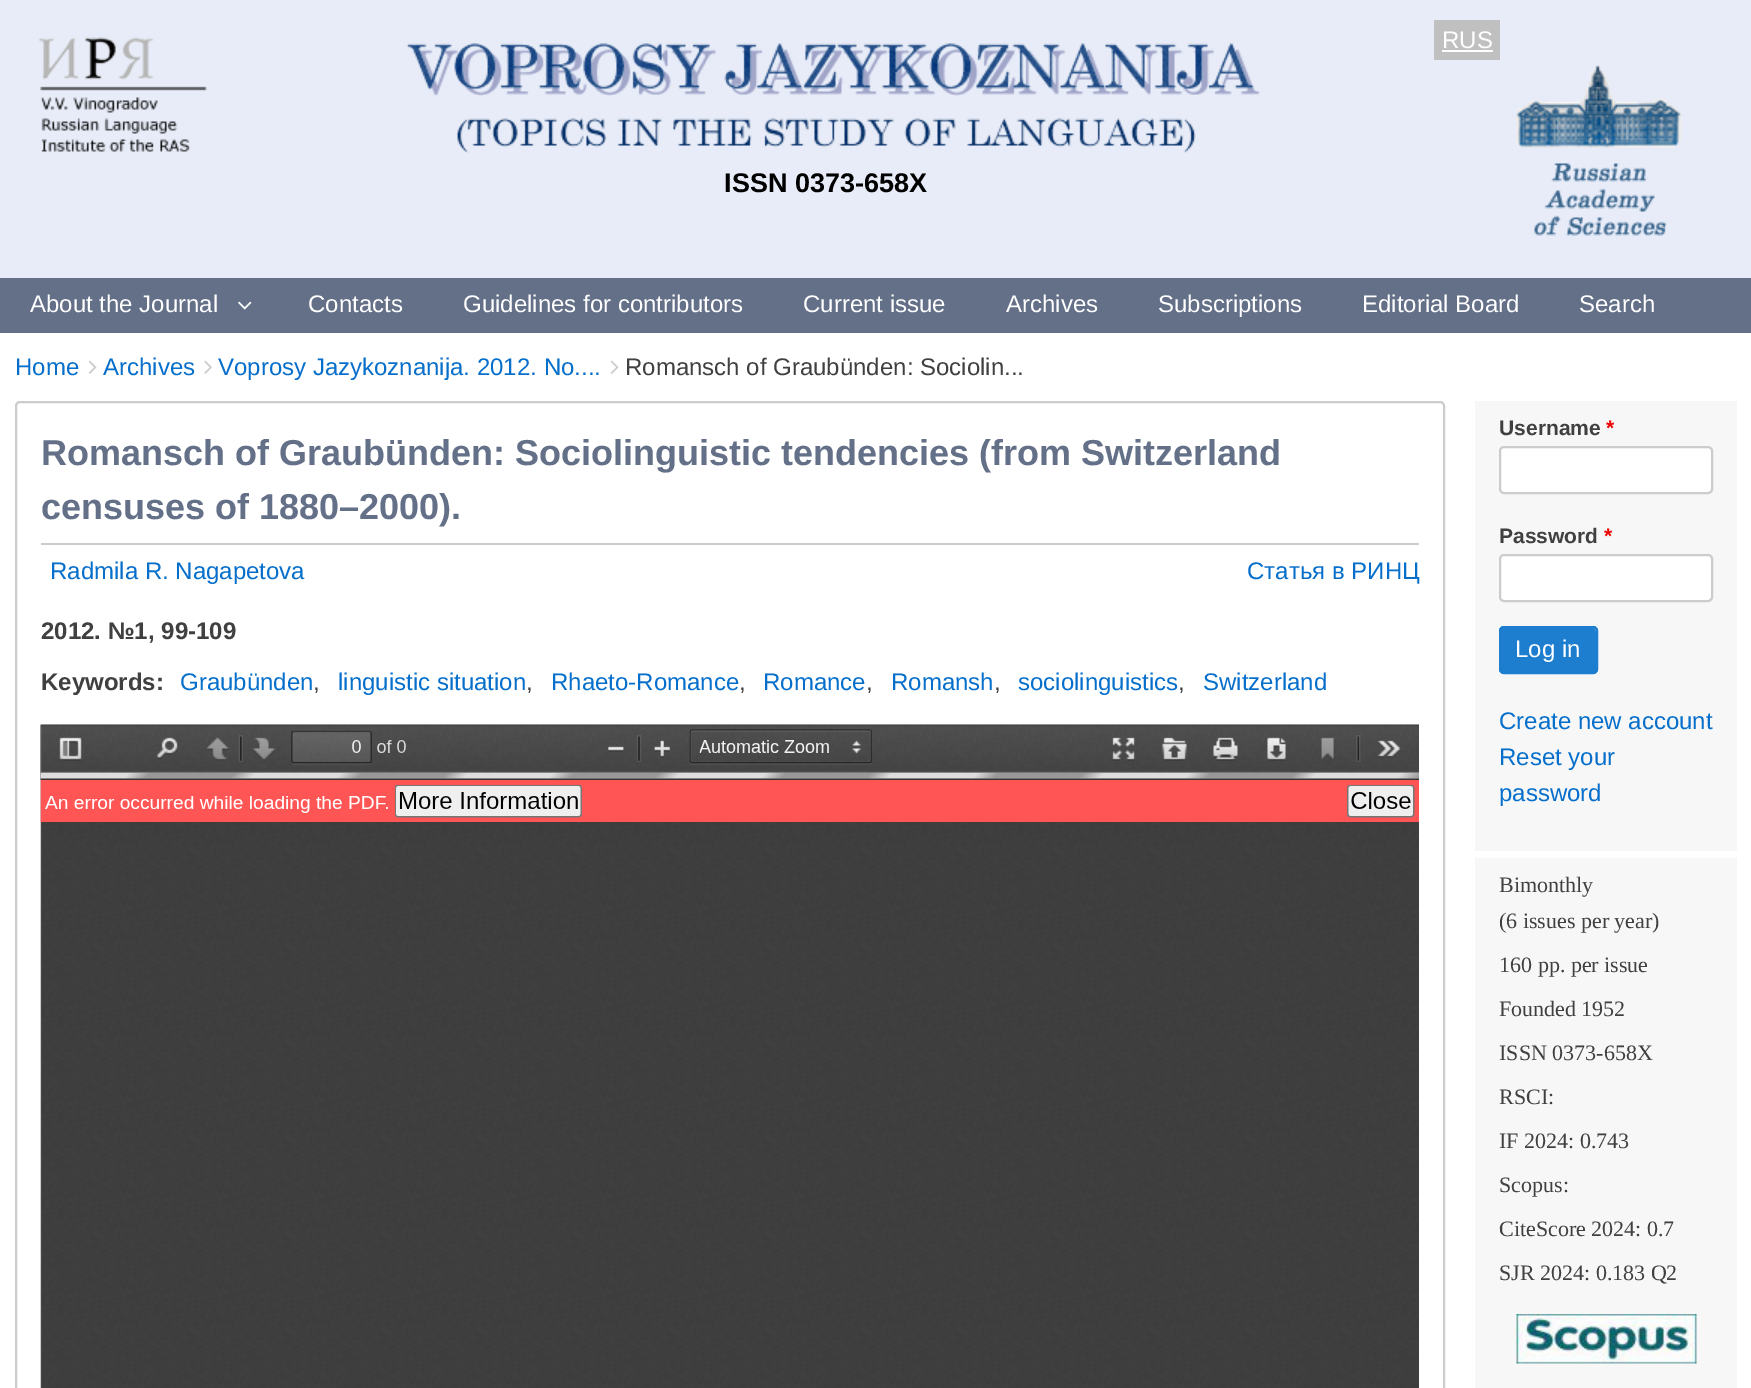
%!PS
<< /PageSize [1751 1388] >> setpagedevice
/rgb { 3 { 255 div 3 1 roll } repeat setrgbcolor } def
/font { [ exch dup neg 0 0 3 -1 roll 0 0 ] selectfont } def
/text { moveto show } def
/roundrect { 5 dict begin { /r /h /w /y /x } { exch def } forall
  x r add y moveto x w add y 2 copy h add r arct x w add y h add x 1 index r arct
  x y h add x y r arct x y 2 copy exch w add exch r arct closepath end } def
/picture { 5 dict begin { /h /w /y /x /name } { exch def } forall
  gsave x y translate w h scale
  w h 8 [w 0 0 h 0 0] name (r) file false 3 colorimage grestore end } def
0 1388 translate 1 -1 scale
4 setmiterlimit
231 236 248 rgb
0 0 1751 1388 rectfill
(img_01.rgb) 38 37 170 115 picture
(img_02.rgb) 406 43 854 110 picture
192 192 192 rgb
1434 20 66 40 rectfill
255 255 255 rgb
1442 50 51 2 rectfill
(img_03.rgb) 1515 65 167 171 picture
99 112 136 rgb
0 278 1751 55 rectfill
(img_04.rgb) 238 301 14 9 picture
255 255 255 rgb
0 333 1751 1055 rectfill
(img_05.rgb) 88 360 9 14 picture
(img_06.rgb) 204 360 8 14 picture
(img_05.rgb) 610 360 9 14 picture
204 204 204 rgb
2 setlinewidth
16 402 1428 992 4 roundrect stroke
41 543 1378 2 rectfill
(img_07.rgb) 40 724 1379 664 picture
247 247 247 rgb
1475 401 262 450 rectfill
255 255 255 rgb
1500 447 212 46 4 roundrect gsave fill grestore
204 204 204 rgb
stroke
255 255 255 rgb
1500 555 212 46 4 roundrect gsave fill grestore
204 204 204 rgb
stroke
29 125 207 rgb
1499 626 99 48 5 roundrect fill
142 190 231 rgb
1503 628 moveto 90 0 rlineto 2 0 3 2 3 4 rcurveto 0 -2 rlineto 0 -2 -1 -3 -3 -3 rcurveto -90 0 rlineto -2 0 -3 1 -3 3 rcurveto 0 2 rlineto 0 -2 1 -4 3 -4 rcurveto closepath fill
29 125 207 rgb
1500 627 97 46 4 roundrect stroke
247 247 247 rgb
1475 858 262 530 rectfill
(img_08.rgb) 1516 1314 181 50 picture
/LiberationSans-Bold 27 font
0 0 0 rgb
(ISSN 0373-658X) 724 192 text
/LiberationSans-Regular 24 font
255 255 255 rgb
(RUS) 1442 48 text
(About the Journal) 30 312 text
(Contacts) 308 312 text
(Guidelines for contributors) 463 312 text
(Current issue) 803 312 text
(Archives) 1006 312 text
(Subscriptions) 1158 312 text
(Editorial Board) 1362 312 text
(Search) 1579 312 text
5 111 203 rgb
(Home) 15 375 text
(Archives) 103 375 text
(Voprosy Jazykoznanija. 2012. No....) 218 375 text
64 64 64 rgb
(Romansch of Graubünden: Sociolin...) 625 375 text
/LiberationSans-Bold 36 font
99 112 136 rgb
(Romansch of Graubünden: Sociolinguistic tendencies \(from Switzerland) 41 465 text
(censuses of 1880–2000\).) 41 519 text
/LiberationSans-Regular 24 font
5 111 203 rgb
(Radmila R. Nagapetova) 50 579 text
(Статья в РИНЦ) 1247 579 text
/LiberationSans-Bold 24 font
64 64 64 rgb
(2012. №1, 99-109) 41 639 text
(Keywords:) 41 690 text
/LiberationSans-Regular 24 font
5 111 203 rgb
(Graubünden) 180 690 text
64 64 64 rgb
(,) 313 690 text
5 111 203 rgb
(linguistic situation) 338 690 text
64 64 64 rgb
(,) 526 690 text
5 111 203 rgb
(Rhaeto-Romance) 551 690 text
64 64 64 rgb
(,) 739 690 text
5 111 203 rgb
(Romance) 763 690 text
64 64 64 rgb
(,) 866 690 text
5 111 203 rgb
(Romansh) 891 690 text
64 64 64 rgb
(,) 994 690 text
5 111 203 rgb
(sociolinguistics) 1018 690 text
64 64 64 rgb
(,) 1178 690 text
5 111 203 rgb
(Switzerland) 1203 690 text
/LiberationSans-Bold 21 font
64 64 64 rgb
(Username) 1499 435 text
238 0 0 rgb
(*) 1606 435 text
64 64 64 rgb
(Password) 1499 543 text
238 0 0 rgb
(*) 1604 543 text
/LiberationSans-Regular 24 font
255 255 255 rgb
(Log in) 1515 657 text
5 111 203 rgb
(Create new account) 1499 729 text
(Reset your) 1499 765 text
(password) 1499 801 text
/LiberationSerif-Regular 22 font
64 64 64 rgb
(Bimonthly) 1499 892 text
(\(6 issues per year\)) 1499 928 text
(160 pp. per issue) 1499 972 text
(Founded 1952) 1499 1016 text
(ISSN 0373-658X) 1499 1060 text
(RSCI:) 1499 1104 text
(IF 2024: 0.743) 1499 1148 text
(Scopus:) 1499 1192 text
(CiteScore 2024: 0.7) 1499 1236 text
(SJR 2024: 0.183 Q2) 1499 1280 text
showpage
